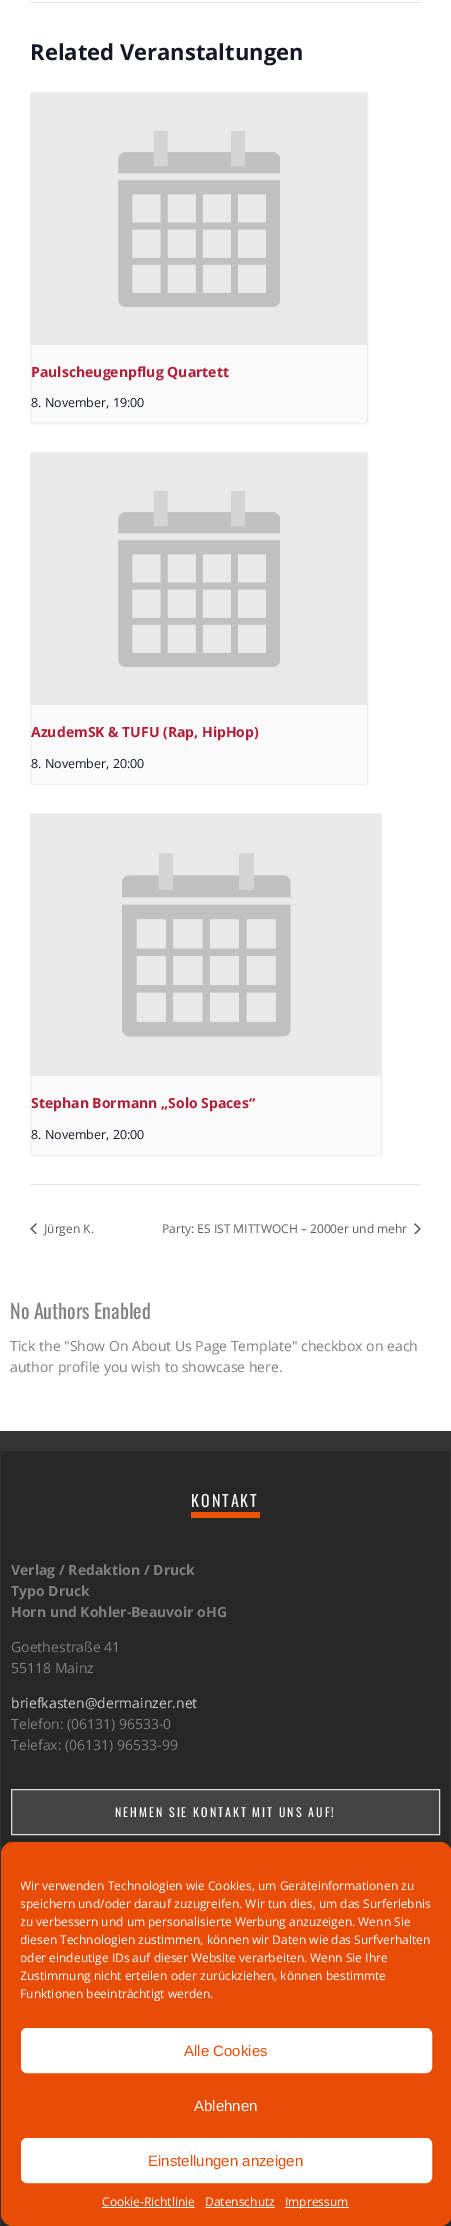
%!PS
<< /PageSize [451 2226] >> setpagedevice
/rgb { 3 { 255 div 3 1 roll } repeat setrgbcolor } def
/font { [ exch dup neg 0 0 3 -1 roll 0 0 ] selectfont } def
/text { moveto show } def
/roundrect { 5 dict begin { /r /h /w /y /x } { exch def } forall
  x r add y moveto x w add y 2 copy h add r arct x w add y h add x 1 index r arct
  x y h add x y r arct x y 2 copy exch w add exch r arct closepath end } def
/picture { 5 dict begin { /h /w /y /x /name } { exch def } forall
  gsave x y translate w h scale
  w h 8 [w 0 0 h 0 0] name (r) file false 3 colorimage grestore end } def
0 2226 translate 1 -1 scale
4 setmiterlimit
255 255 255 rgb
0 0 451 2226 rectfill
228 228 228 rgb
30 2 391 1 rectfill
250 250 250 rgb
30.5 92.5 337 331 2.5 roundrect gsave fill grestore
238 238 238 rgb
stroke
(img_01.rgb) 31 93 336 252 picture
250 250 250 rgb
30.5 452.5 337 332 2.5 roundrect gsave fill grestore
238 238 238 rgb
stroke
(img_01.rgb) 31 453 336 252 picture
250 250 250 rgb
30.5 813.5 351 342 2.5 roundrect gsave fill grestore
238 238 238 rgb
stroke
(img_02.rgb) 31 814 350 262 picture
228 228 228 rgb
30 1184 391 1 rectfill
(img_03.rgb) 30 1223 7 11 picture
(img_04.rgb) 414 1223 7 11 picture
39 39 39 rgb
1 1451 449 775 rectfill
51 51 51 rgb
0 1431 451 20 rectfill
450 1451 1 775 rectfill
0 1451 1 775 rectfill
239 83 0 rgb
191 1512 69 6 rectfill
68 68 68 rgb
11.5 1789.5 moveto 428 0 rlineto 0 45 rlineto -428 0 rlineto closepath gsave fill grestore
221 221 221 rgb
stroke
232 76 5 rgb
1 1842 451 384 12 roundrect fill
255 255 255 rgb
21.5 2028.5 410 44 5.5 roundrect gsave fill grestore
stroke
21.5 2138.5 410 44 5.5 roundrect gsave fill grestore
stroke
102 2207 93 1 rectfill
205 2207 70 1 rectfill
285 2207 64 1 rectfill
/OpenSans-Bold 22 font
20 24 39 rgb
(Related Veranstaltungen) 30 60 text
/OpenSans-Bold 14 font
174 31 57 rgb
(Paulscheugenpflug Quartett) 31 377 text
/OpenSans-Regular 12.5 font
20 24 39 rgb
(8. November, 19:00) 31 407 text
/OpenSans-Bold 14 font
174 31 57 rgb
(AzudemSK & TUFU \(Rap, HipHop\)) 31 737 text
/OpenSans-Regular 12.5 font
20 24 39 rgb
(8. November, 20:00) 31 768 text
/OpenSans-Bold 14 font
174 31 57 rgb
(Stephan Bormann „Solo Spaces“) 31 1108 text
/OpenSans-Regular 12.5 font
20 24 39 rgb
(8. November, 20:00) 31 1139 text
/OpenSans-Regular 12 font
93 93 93 rgb
(Jürgen K.) 44 1233 text
(Party: ES IST MITTWOCH – 2000er und mehr) 162 1233 text
/Oswald-Regular 20 font
128 128 128 rgb
(No Authors Enabled) 10 1319 text
/OpenSans-Regular 14 font
(Tick the "Show On About Us Page Template" checkbox on each) 10 1351 text
(author profile you wish to showcase here.) 10 1372 text
/Oswald-Regular 16 font
242 242 242 rgb
191 1507 moveto 2 0 (KONTAKT) ashow
/OpenSans-Bold 14 font
128 128 128 rgb
(Verlag / Redaktion / Druck) 11 1575 text
(Typo Druck) 11 1596 text
(Horn und Kohler-Beauvoir oHG) 11 1617 text
/OpenSans-Regular 14 font
(Goethestraße 41) 11 1652 text
(55118 Mainz) 11 1673 text
204 204 204 rgb
(briefkasten@dermainzer.net) 11 1708 text
128 128 128 rgb
(Telefon: \(06131\) 96533-0) 11 1729 text
(Telefax: \(06131\) 96533-99) 11 1750 text
/Oswald-Regular 12 font
255 255 255 rgb
115 1817 moveto 2 0 (NEHMEN SIE KONTAKT MIT UNS AUF!) ashow
gsave
21 1877 411 131 rectclip
/OpenSans-Regular 12 font
(Wir verwenden Technologien wie Cookies, um Geräteinformationen zu) 20 1890 text
(speichern und/oder darauf zuzugreifen. Wir tun dies, um das Surferlebnis) 20 1908 text
(zu verbessern und um personalisierte Werbung anzuzeigen. Wenn Sie) 20 1926 text
(diesen Technologien zustimmen, können wir Daten wie das Surfverhalten) 20 1944 text
(oder eindeutige IDs auf dieser Website verarbeiten. Wenn Sie Ihre) 20 1962 text
(Zustimmung nicht erteilen oder zurückziehen, können bestimmte) 20 1980 text
grestore
/OpenSans-Regular 12 font
(Funktionen beeinträchtigt werden.) 20 1998 text
/LiberationSans-Regular 15 font
232 76 5 rgb
(Alle Cookies) 184 2056 text
255 255 255 rgb
(Ablehnen) 194 2111 text
232 76 5 rgb
(Einstellungen anzeigen) 148 2166 text
/OpenSans-Regular 12 font
255 255 255 rgb
(Cookie-Richtlinie) 102 2206 text
(Datenschutz) 205 2206 text
(Impressum) 285 2206 text
showpage
